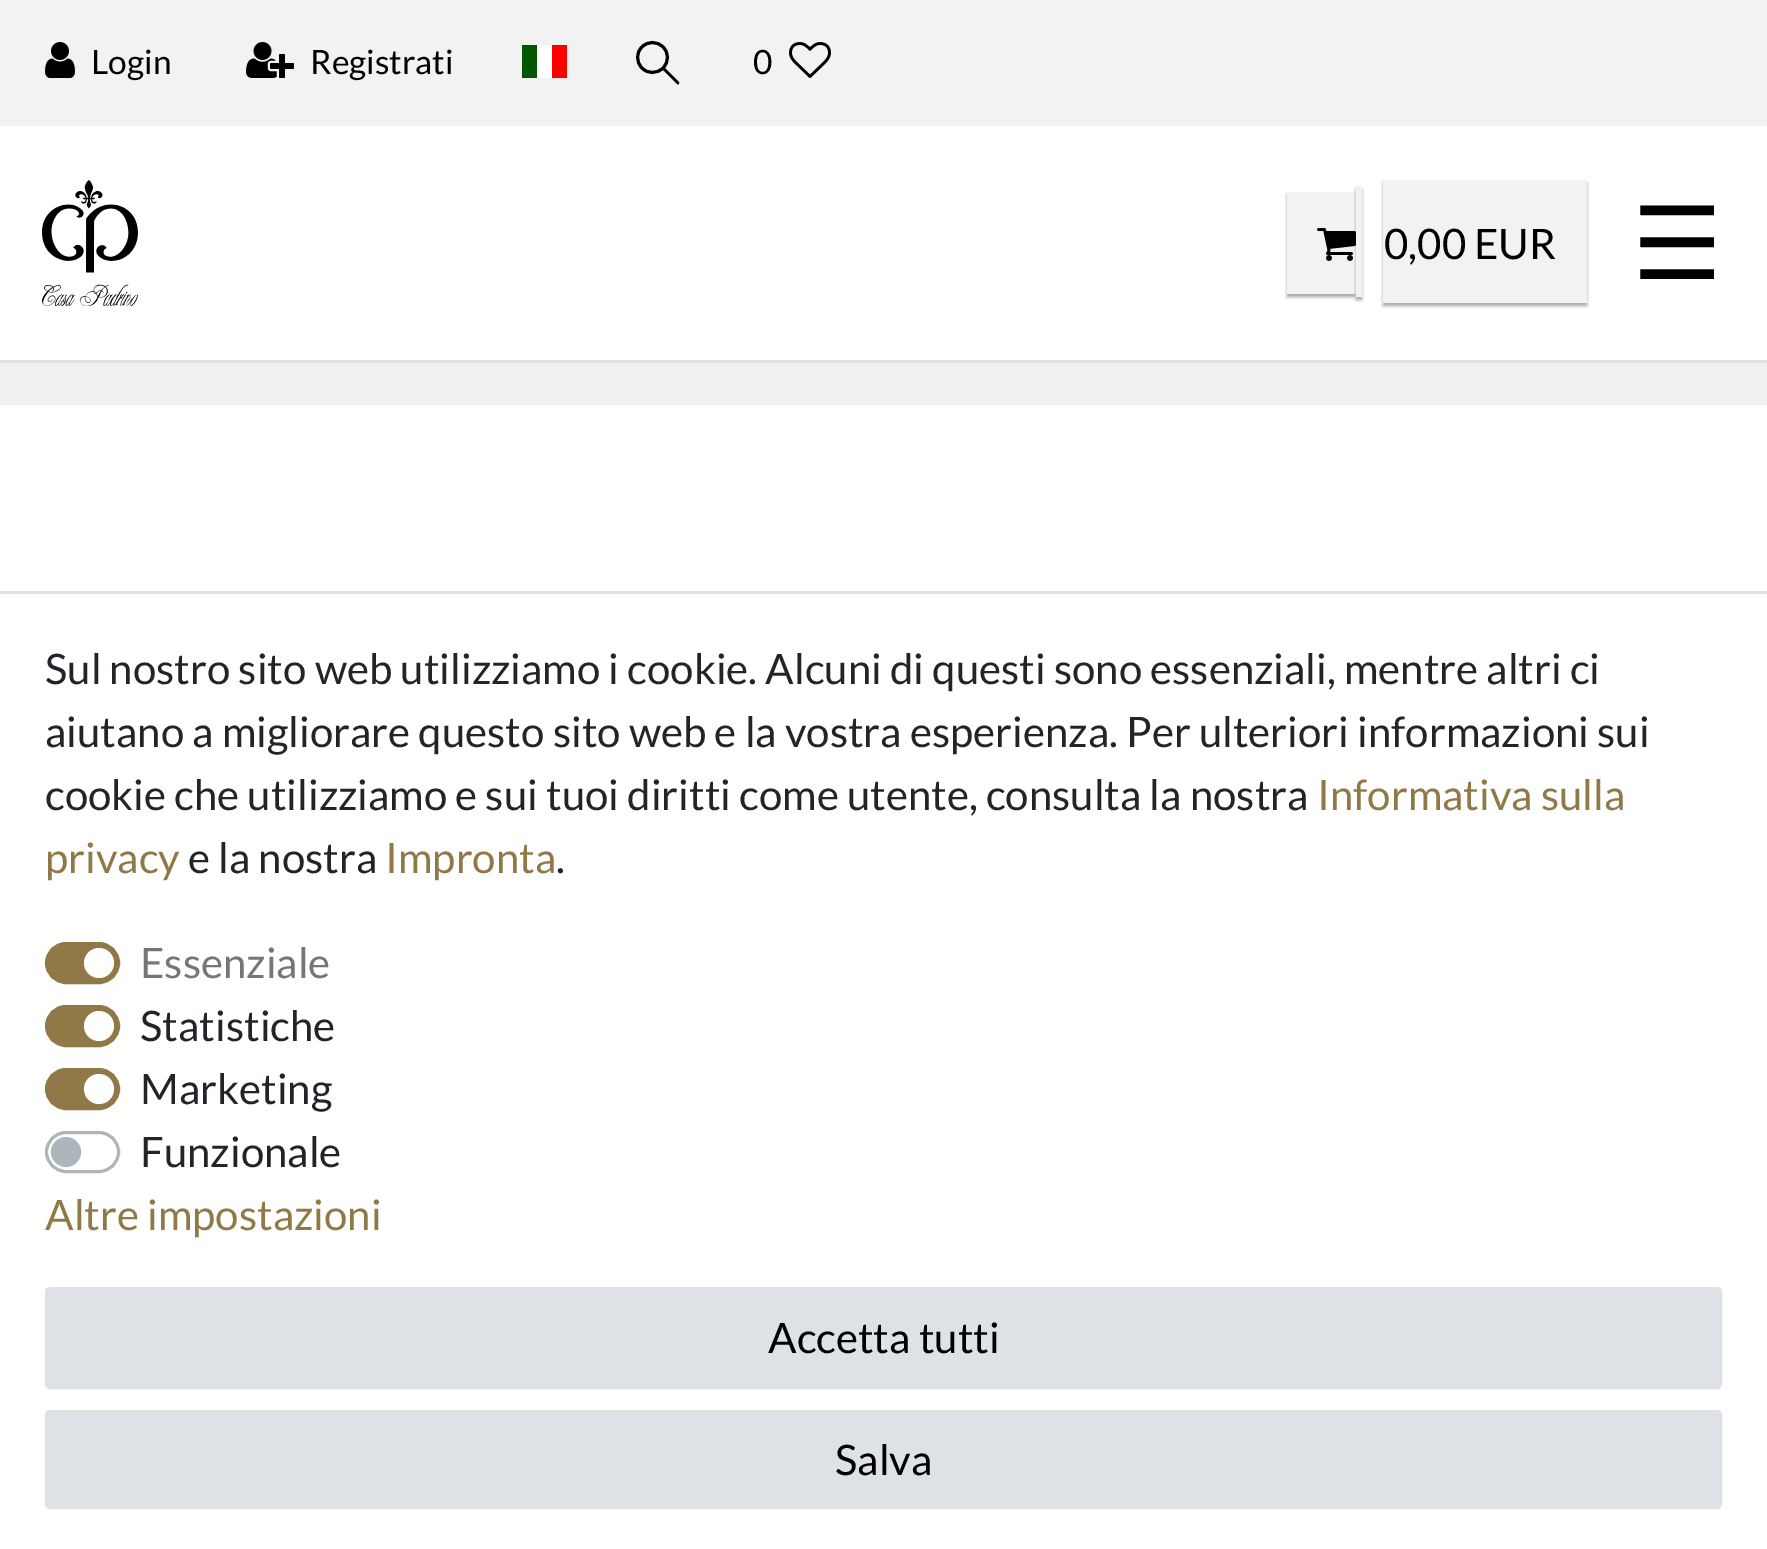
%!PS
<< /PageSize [1767 1549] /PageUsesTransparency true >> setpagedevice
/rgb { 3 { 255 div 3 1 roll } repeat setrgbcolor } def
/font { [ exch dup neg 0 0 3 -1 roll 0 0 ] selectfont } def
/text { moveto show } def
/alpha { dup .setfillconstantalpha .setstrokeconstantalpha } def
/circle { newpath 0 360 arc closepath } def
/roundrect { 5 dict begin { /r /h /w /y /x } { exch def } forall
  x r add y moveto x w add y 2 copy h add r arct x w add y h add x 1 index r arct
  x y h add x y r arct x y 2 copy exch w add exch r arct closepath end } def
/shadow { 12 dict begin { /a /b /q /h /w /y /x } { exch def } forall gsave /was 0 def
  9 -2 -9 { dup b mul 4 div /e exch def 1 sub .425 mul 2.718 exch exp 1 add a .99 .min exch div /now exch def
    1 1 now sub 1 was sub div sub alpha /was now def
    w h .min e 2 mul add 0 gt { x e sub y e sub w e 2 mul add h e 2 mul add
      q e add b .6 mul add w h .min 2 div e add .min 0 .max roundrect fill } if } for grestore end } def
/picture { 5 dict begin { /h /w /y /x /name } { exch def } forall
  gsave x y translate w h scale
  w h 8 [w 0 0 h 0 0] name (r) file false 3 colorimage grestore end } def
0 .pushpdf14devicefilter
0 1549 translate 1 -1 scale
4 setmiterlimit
255 255 255 rgb
0 0 1767 1549 rectfill
242 242 242 rgb
0 0 1767 126 rectfill
(img_01.rgb) 45 42 30 36 picture
(img_02.rgb) 246 42 48 36 picture
255 255 255 rgb
537 45 15 33 rectfill
0 87 0 rgb
522 45 15 33 rectfill
252 0 0 rgb
552 45 15 33 rectfill
0 0 0 rgb
677 84 moveto -30 -30 rlineto 0 -1.5 rlineto 0 -0.5 1 -1 1.5 -1 rcurveto 30.5 30.5 rlineto 1 1.5 -1 3 -2 2 rcurveto closepath fill
242 242 242 rgb
640.5 69 moveto -6 -6.5 -6 -17 0 -23.5 rcurveto 6.5 -6.5 17 -6.5 23.5 0 rcurveto 6.5 6.5 6.5 17 0 23.5 rcurveto -6.5 6.5 -17 6.5 -23.5 0 rcurveto closepath fill
0 0 0 rgb
3 setlinewidth
642 68 moveto -6 -6 -6 -15.5 0 -21 rcurveto 5.5 -6 15 -6 21 0 rcurveto 6 5.5 6 15 0 21 rcurveto -6 6 -15.5 6 -21 0 rcurveto closepath stroke
(img_03.rgb) 789 42 42 36 picture
(img_04.rgb) 42 180 96 126 picture
169 169 169 rgb
1287 195 69 102 0 1.5 1 shadow
242 242 242 rgb
1287 192 69 102 rectfill
169 169 169 rgb
1356 189 6 111 0 1.5 1 shadow
242 242 242 rgb
1356 186 6 111 rectfill
169 169 169 rgb
1383 183 204 123 0 1.5 1 shadow
242 242 242 rgb
1383 180 204 123 rectfill
(img_05.rgb) 1317 228 39 33 picture
222 226 230 rgb
0 360 1767 3 rectfill
241 241 241 rgb
0 363 1767 42 rectfill
222 226 230 rgb
0 591 1767 3 rectfill
144 121 70 rgb
46.5 943.5 72 39 19.5 roundrect gsave fill grestore
stroke
255 255 255 rgb
99 963 15 circle fill
144 121 70 rgb
46.5 1006.5 72 39 19.5 roundrect gsave fill grestore
stroke
255 255 255 rgb
99 1026 15 circle fill
144 121 70 rgb
46.5 1069.5 72 39 19.5 roundrect gsave fill grestore
stroke
255 255 255 rgb
99 1089 15 circle fill
173 181 189 rgb
46.5 1132.5 72 39 19.5 roundrect stroke
66 1152 15 circle fill
222 226 230 rgb
46.5 1288.5 1674 99 3.5 roundrect gsave fill grestore
stroke
46.5 1411.5 1674 96 3.5 roundrect gsave fill grestore
stroke
/Lato-Regular 33.5 font
0 0 0 rgb
(Login) 91 74 text
(Registrati) 310 74 text
(0) 753 74 text
/Lato-Regular 42 font
(0,00 EUR) 1384 259 text
/DejaVuSans-Regular 101 font
(☰) 1632 279 text
/Lato-Regular 42 font
33 37 41 rgb
(Sul nostro sito web utilizziamo i cookie. Alcuni di questi sono essenziali, mentre altri ci) 45 684 text
(aiutano a migliorare questo sito web e la vostra esperienza. Per ulteriori informazioni sui) 45 747 text
(cookie che utilizziamo e sui tuoi diritti come utente, consulta la nostra) 45 810 text
144 121 70 rgb
(Informativa sulla) 1317 810 text
(privacy) 45 873 text
33 37 41 rgb
(e la nostra) 188 873 text
144 121 70 rgb
(Impronta) 385 873 text
33 37 41 rgb
(.) 556 873 text
118 118 118 rgb
(Essenziale) 140 978 text
33 37 41 rgb
(Statistiche) 140 1041 text
(Marketing) 140 1104 text
(Funzionale) 140 1167 text
144 121 70 rgb
(Altre impostazioni) 45 1230 text
0 0 0 rgb
(Accetta tutti) 768 1353 text
(Salva) 835 1475 text
.poppdf14devicefilter showpage
